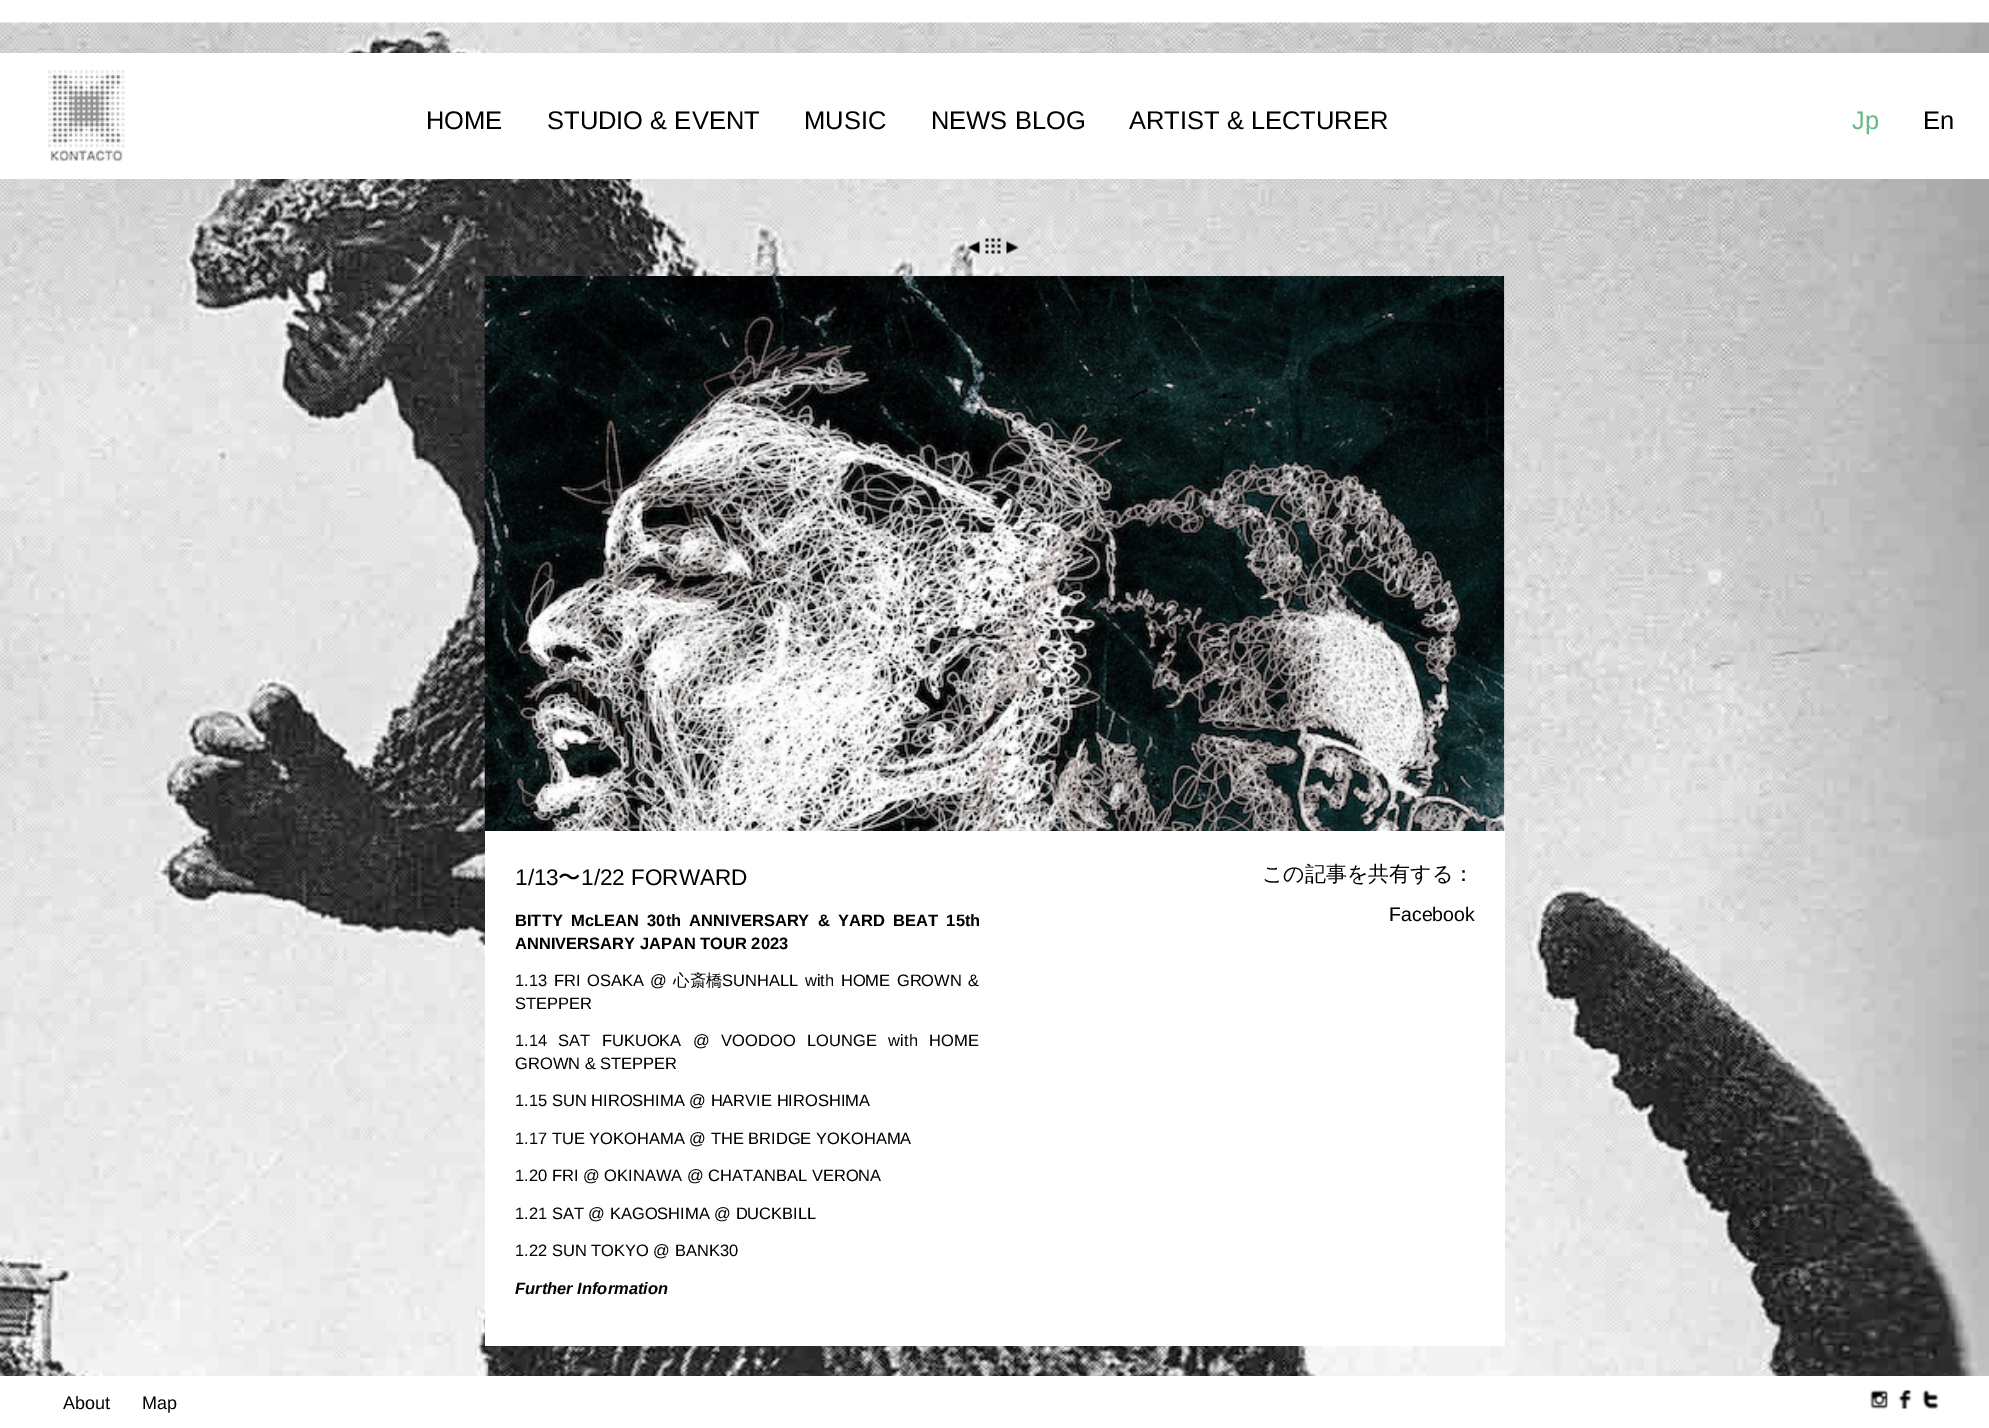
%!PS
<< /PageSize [1989 1428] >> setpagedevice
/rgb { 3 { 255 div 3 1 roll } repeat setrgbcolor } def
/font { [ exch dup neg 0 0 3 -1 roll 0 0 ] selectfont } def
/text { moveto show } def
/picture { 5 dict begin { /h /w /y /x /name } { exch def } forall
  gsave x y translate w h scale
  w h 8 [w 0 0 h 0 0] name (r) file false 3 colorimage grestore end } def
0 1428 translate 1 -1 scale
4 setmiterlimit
255 255 255 rgb
0 0 1989 1428 rectfill
(img_01.rgb) 0 22 1989 1354 picture
0 53 1989 126 rectfill
(img_02.rgb) 48 70 77 92 picture
(img_03.rgb) 967 241 13 13 picture
(img_04.rgb) 985 238 16 16 picture
(img_05.rgb) 1006 241 13 13 picture
485 276 1020 1070 rectfill
(img_06.rgb) 484 276 1021 555 picture
(img_07.rgb) 1870 1390 18 19 picture
(img_08.rgb) 1898 1390 14 19 picture
(img_09.rgb) 1922 1390 17 19 picture
/LiberationSans-Regular 25.5 font
0 0 0 rgb
(HOME) 426 129 text
(STUDIO & EVENT) 547 129 text
(MUSIC) 804 129 text
(NEWS BLOG) 931 129 text
(ARTIST & LECTURER) 1129 129 text
99 187 129 rgb
(Jp) 1852 129 text
0 0 0 rgb
(En) 1923 129 text
/LiberationSans-Regular 22.5 font
(1/13) 515 885 text
/WenQuanYiZenHei-Medium 22.5 font
(〜) 558 885 text
/LiberationSans-Regular 22.5 font
(1/22 FORWARD) 581 885 text
/LiberationSans-Bold 16.5 font
515 926 moveto 3.75 0 32 (BITTY McLEAN 30th ANNIVERSARY & YARD BEAT 15th) widthshow
(ANNIVERSARY JAPAN TOUR 2023) 515 949 text
/LiberationSans-Regular 16.5 font
515 986 moveto 2 0 32 (1.13 FRI OSAKA @) widthshow
/WenQuanYiZenHei-Medium 16.5 font
(心斎橋) 673 986 text
/LiberationSans-Regular 16.5 font
722 986 moveto 2 0 32 (SUNHALL with HOME GROWN &) widthshow
(STEPPER) 515 1009 text
(1.14) 515 1046 text
558 1046 moveto 7 0 32 (SAT FUKUOKA @ VOODOO LOUNGE with HOME) widthshow
(GROWN & STEPPER) 515 1069 text
(1.15 SUN HIROSHIMA @ HARVIE HIROSHIMA) 515 1106 text
(1.17 TUE YOKOHAMA @ THE BRIDGE YOKOHAMA) 515 1144 text
(1.20 FRI @ OKINAWA @ CHATANBAL VERONA) 515 1181 text
(1.21 SAT @ KAGOSHIMA @ DUCKBILL) 515 1219 text
(1.22 SUN TOKYO @ BANK30) 515 1256 text
/LiberationSans-BoldItalic 16.5 font
(Further Information) 515 1294 text
/WenQuanYiZenHei-Medium 21 font
(この記事を共有する：) 1262 881 text
/LiberationSans-Regular 19.5 font
(Facebook) 1389 921 text
/LiberationSans-Regular 18 font
(About) 63 1409 text
(Map) 142 1409 text
showpage
